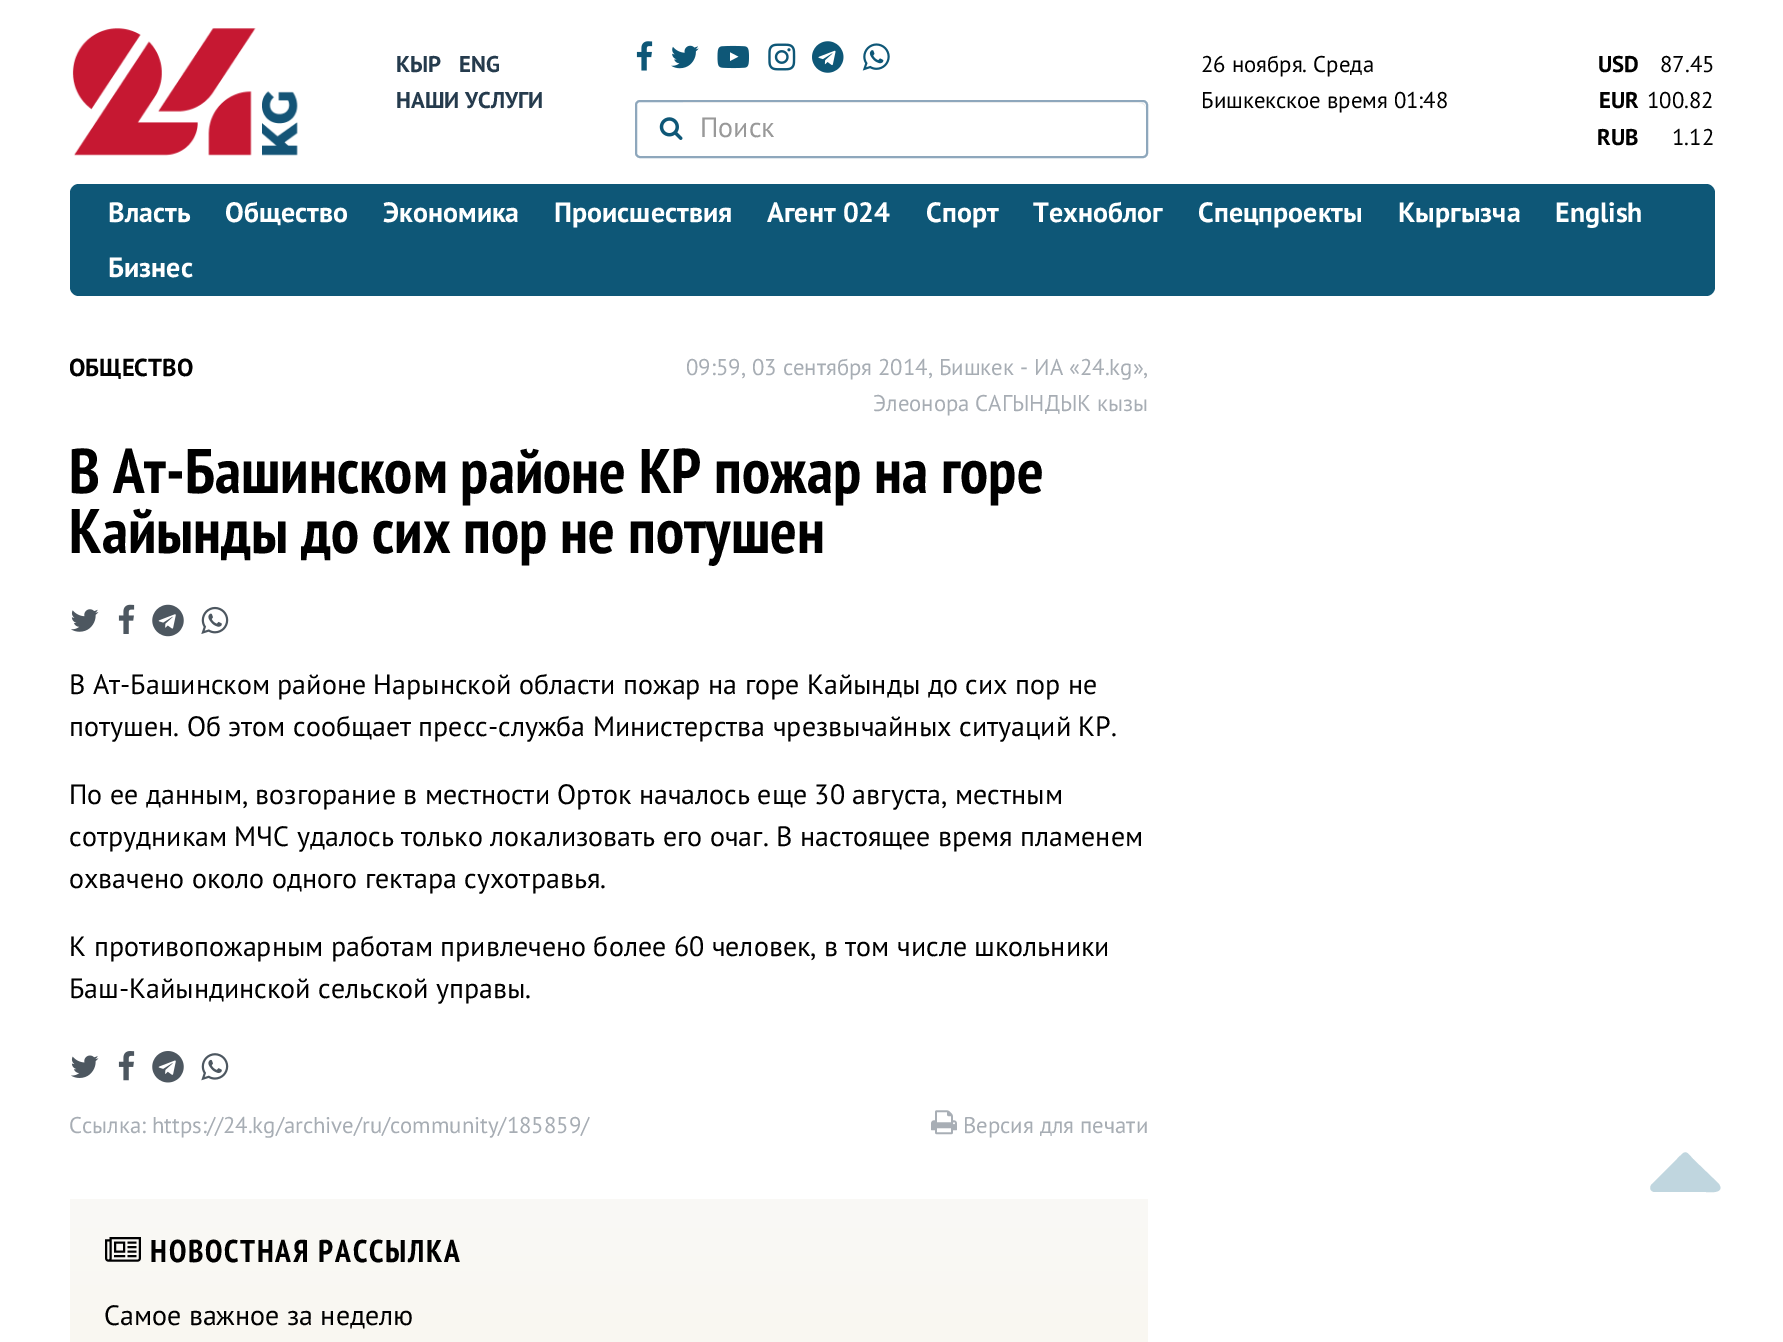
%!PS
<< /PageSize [1783 1342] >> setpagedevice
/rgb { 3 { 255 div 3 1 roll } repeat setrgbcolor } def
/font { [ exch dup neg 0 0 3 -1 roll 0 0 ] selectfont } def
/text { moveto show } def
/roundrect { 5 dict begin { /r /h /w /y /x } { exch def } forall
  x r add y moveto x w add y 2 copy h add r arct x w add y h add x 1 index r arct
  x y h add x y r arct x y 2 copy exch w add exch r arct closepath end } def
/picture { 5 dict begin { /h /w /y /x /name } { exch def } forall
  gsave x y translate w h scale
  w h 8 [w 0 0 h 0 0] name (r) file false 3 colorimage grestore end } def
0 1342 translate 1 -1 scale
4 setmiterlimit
255 255 255 rgb
0 0 1783 1342 rectfill
(img_01.rgb) 72 28 226 128 picture
(img_02.rgb) 636 41 17 30 picture
(img_03.rgb) 671 45 28 24 picture
(img_04.rgb) 717 45 32 24 picture
(img_05.rgb) 768 43 28 28 picture
(img_06.rgb) 812 41 32 32 picture
(img_07.rgb) 862 43 28 28 picture
142 167 188 rgb
2 setlinewidth
636 101 511 56 4 roundrect stroke
(img_08.rgb) 659 117 24 23 picture
236 236 236 rgb
683 102 moveto 0 1 rlineto 456 0 rlineto 4 0 7 3 7 7 rcurveto 0 -4 -2 -8 -7 -8 rcurveto closepath fill
14 87 119 rgb
70 184 1645 112 9 roundrect fill
(img_09.rgb) 71 609 28 23 picture
(img_10.rgb) 118 604 17 30 picture
(img_11.rgb) 152 604 32 33 picture
(img_12.rgb) 201 606 28 28 picture
(img_13.rgb) 71 1055 28 23 picture
(img_14.rgb) 118 1051 17 30 picture
(img_15.rgb) 152 1051 32 32 picture
(img_16.rgb) 201 1053 28 28 picture
(img_17.rgb) 931 1110 26 25 picture
gsave 70 1199 moveto 1078 0 rlineto 0 143 rlineto -1078 0 rlineto closepath clip newpath
<< /ShadingType 2 /ColorSpace /DeviceRGB /Coords [609 1199 609 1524] /Extend [true true] /Function << /FunctionType 2 /Domain [0 1] /C0 [0.98 0.976 0.965] /C1 [0.969 0.957 0.918] /N 1 >> >> shfill grestore
(img_18.rgb) 105 1237 36 25 picture
192 214 223 rgb
1719 1184 moveto 1 2 rlineto 3 8 -13 6 -14 6 rcurveto -52 0 rlineto -4 -1 -5 -5 -2 -8 rcurveto 25 -25 rlineto 9 -9 8 -9 16 0 rcurveto closepath fill
/PTSans-Bold 22.75 font
37 59 77 rgb
(КЫР) 396 72 text
(ENG) 459 72 text
(НАШИ УСЛУГИ) 396 108 text
/PTSans-Regular 28 font
153 153 153 rgb
(Поиск) 700 137 text
/PTSans-Regular 22.75 font
0 0 0 rgb
(26 ноября. Среда) 1201 72 text
(Бишкекское время 01:48) 1201 108 text
/PTSans-Bold 22.75 font
(USD) 1598 72 text
/PTSans-Regular 22.75 font
(87.45) 1660 72 text
/PTSans-Bold 22.75 font
(EUR) 1599 108 text
/PTSans-Regular 22.75 font
(100.82) 1647 108 text
/PTSans-Bold 22.75 font
(RUB) 1597 145 text
/PTSans-Regular 22.75 font
(1.12) 1672 145 text
/PTSans-Bold 28 font
255 255 255 rgb
(Власть) 108 222 text
(Общество) 225 222 text
(Экономика) 383 222 text
(Происшествия) 554 222 text
(Агент 024) 767 222 text
(Спорт) 926 222 text
(Техноблог) 1033 222 text
(Спецпроекты) 1198 222 text
(Кыргызча) 1398 222 text
(English) 1555 222 text
(Бизнес) 108 277 text
/PTSans-Bold 24.5 font
0 0 0 rgb
(ОБЩЕСТВО) 69 376 text
/PTSans-Regular 22.75 font
167 173 180 rgb
(09:59, 03 сентября 2014, Бишкек - ИА «24.kg»,) 686 375 text
(Элеонора САГЫНДЫК кызы) 873 411 text
/PTSansNarrow-Bold 63 font
0 0 0 rgb
(В Ат-Башинском районе КР пожар на горе) 69 493 text
(Кайынды до сих пор не потушен) 69 553 text
/PTSans-Regular 28 font
(В Ат-Башинском районе Нарынской области пожар на горе Кайынды до сих пор не) 69 694 text
(потушен. Об этом сообщает пресс-служба Министерства чрезвычайных ситуаций КР.) 69 736 text
(По ее данным, возгорание в местности Орток началось еще 30 августа, местным) 69 804 text
(сотрудникам МЧС удалось только локализовать его очаг. В настоящее время пламенем) 69 846 text
(охвачено около одного гектара сухотравья.) 69 888 text
(К противопожарным работам привлечено более 60 человек, в том числе школьники) 69 956 text
(Баш-Кайындинской сельской управы.) 69 998 text
/PTSans-Regular 22.75 font
167 173 180 rgb
(Ссылка: https://24.kg/archive/ru/community/185859/) 69 1133 text
(Версия для печати) 963 1133 text
/PTSansNarrow-Bold 31.5 font
0 0 0 rgb
150 1262 moveto 1.75 0 (НОВОСТНАЯ РАССЫЛКА) ashow
/PTSans-Regular 28 font
(Самое важное за неделю) 104 1325 text
showpage
